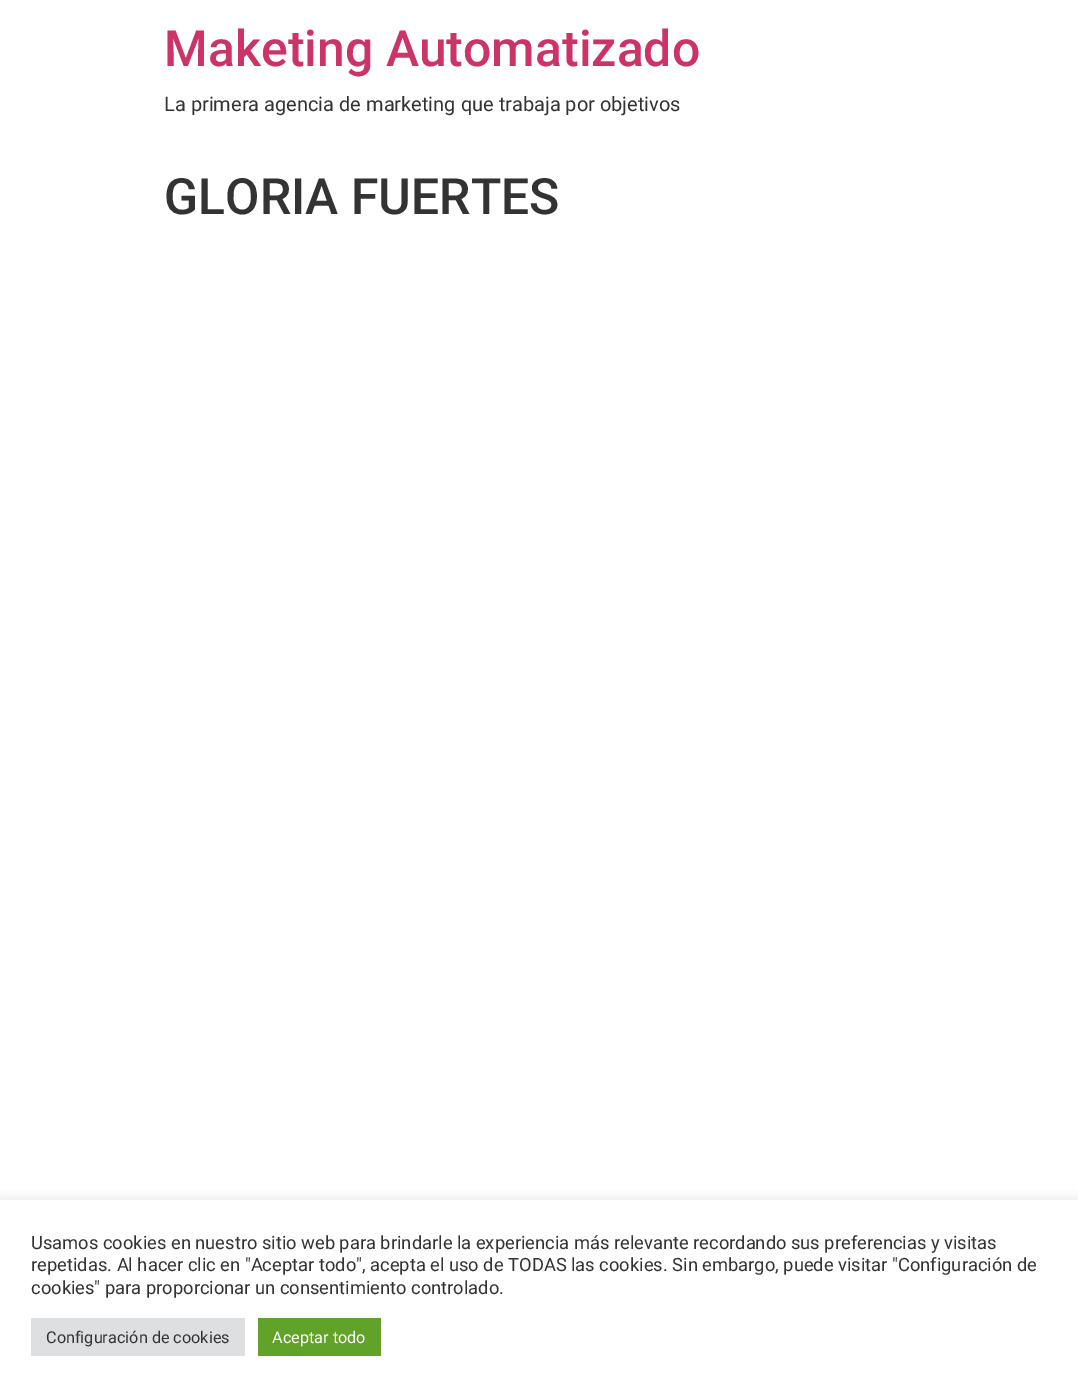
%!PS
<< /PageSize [1078 1393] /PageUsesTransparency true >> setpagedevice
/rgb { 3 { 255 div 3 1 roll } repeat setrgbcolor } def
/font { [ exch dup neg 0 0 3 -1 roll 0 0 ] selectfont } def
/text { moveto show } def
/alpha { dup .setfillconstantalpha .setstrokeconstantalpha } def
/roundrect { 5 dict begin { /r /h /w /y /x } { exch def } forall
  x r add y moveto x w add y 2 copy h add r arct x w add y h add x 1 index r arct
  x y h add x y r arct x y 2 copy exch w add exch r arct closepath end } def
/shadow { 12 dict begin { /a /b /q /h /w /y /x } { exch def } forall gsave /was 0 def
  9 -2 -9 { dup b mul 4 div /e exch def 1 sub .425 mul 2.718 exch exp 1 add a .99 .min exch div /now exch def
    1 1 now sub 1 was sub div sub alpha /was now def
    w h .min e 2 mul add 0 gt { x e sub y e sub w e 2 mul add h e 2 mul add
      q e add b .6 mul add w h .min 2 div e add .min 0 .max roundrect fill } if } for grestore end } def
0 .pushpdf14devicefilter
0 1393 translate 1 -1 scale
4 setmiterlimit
255 255 255 rgb
0 0 1078 1393 rectfill
gsave
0 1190 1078 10 rectclip
172 171 171 rgb
0 1199 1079 194 0 6 0.3 shadow
grestore
222 223 224 rgb
31 1318 214 38 rectfill
97 162 41 rgb
258 1318 123 38 rectfill
/Roboto-Medium 50 font
204 51 102 rgb
(Maketing Automatizado) 164 66 text
/Roboto-Regular 20 font
51 51 51 rgb
(La primera agencia de marketing que trabaja por objetivos) 164 111 text
/Roboto-Medium 50 font
(GLORIA FUERTES) 164 214 text
/Roboto-Regular 18.33 font
(Usamos cookies en nuestro sitio web para brindarle la experiencia más relevante recordando sus preferencias y visitas) 31 1249 text
(repetidas. Al hacer clic en "Aceptar todo", acepta el uso de TODAS las cookies. Sin embargo, puede visitar "Configuración de) 31 1271 text
(cookies" para proporcionar un consentimiento controlado.) 31 1294 text
/Roboto-Regular 16.25 font
(Configuración de cookies) 46 1343 text
255 255 255 rgb
(Aceptar todo) 272 1343 text
.poppdf14devicefilter showpage
